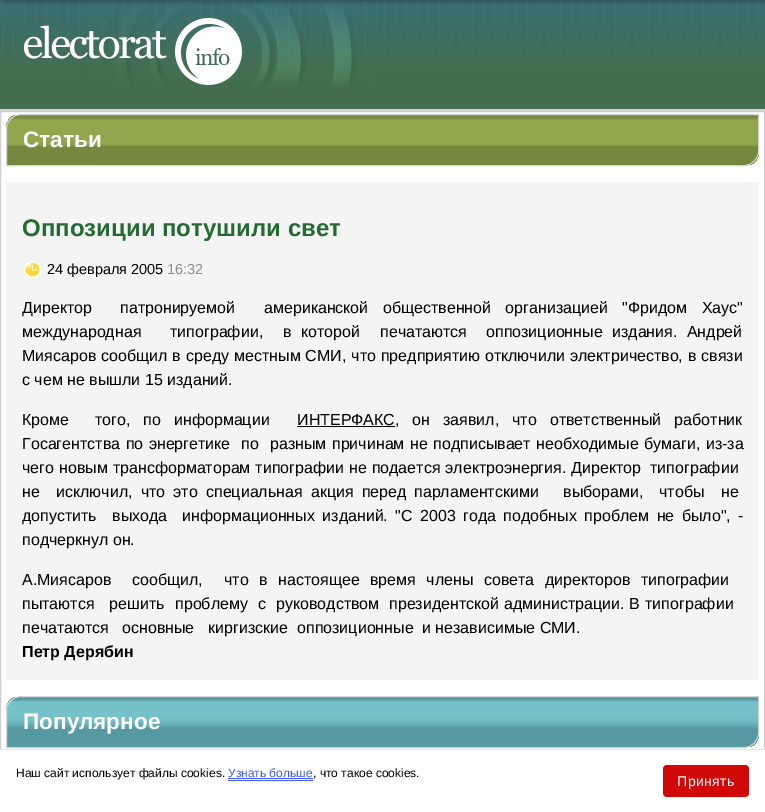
%!PS
<< /PageSize [765 812] >> setpagedevice
/rgb { 3 { 255 div 3 1 roll } repeat setrgbcolor } def
/font { [ exch dup neg 0 0 3 -1 roll 0 0 ] selectfont } def
/text { moveto show } def
/roundrect { 5 dict begin { /r /h /w /y /x } { exch def } forall
  x r add y moveto x w add y 2 copy h add r arct x w add y h add x 1 index r arct
  x y h add x y r arct x y 2 copy exch w add exch r arct closepath end } def
/picture { 5 dict begin { /h /w /y /x /name } { exch def } forall
  gsave x y translate w h scale
  w h 8 [w 0 0 h 0 0] name (r) file false 3 colorimage grestore end } def
0 812 translate 1 -1 scale
4 setmiterlimit
66 110 79 rgb
0 0 765 812 rectfill
(img_01.rgb) 377 0 388 66 picture
(img_02.rgb) 0 0 377 87 picture
211 211 211 rgb
0 109 765 2 rectfill
255 255 255 rgb
1 112 763 637 rectfill
207 207 207 rgb
0.5 111.5 764 639 rectstroke
gsave
21 114 moveto 738 0 rlineto 0 37 rlineto 0 8.5 -6.5 15 -15 15 rcurveto -738 0 rlineto 0 -37 rlineto 0 -8.5 6.5 -15 15 -15 rcurveto closepath clip newpath
gsave 6 115 moveto 753 0 rlineto 0 50 rlineto -753 0 rlineto closepath clip newpath
<< /ShadingType 2 /ColorSpace /DeviceRGB /Coords [383 115 383 165] /Extend [true true] /Function << /FunctionType 3 /Domain [0 1] /Functions [<< /FunctionType 2 /Domain [0 1] /C0 [0.463 0.533 0.239] /C1 [0.463 0.533 0.239] /N 1 >> << /FunctionType 2 /Domain [0 1] /C0 [0.463 0.533 0.239] /C1 [0.471 0.549 0.251] /N 1 >> << /FunctionType 2 /Domain [0 1] /C0 [0.471 0.549 0.251] /C1 [0.549 0.631 0.29] /N 1 >> << /FunctionType 2 /Domain [0 1] /C0 [0.549 0.631 0.29] /C1 [0.569 0.651 0.302] /N 1 >> << /FunctionType 2 /Domain [0 1] /C0 [0.569 0.651 0.302] /C1 [0.569 0.651 0.302] /N 1 >> << /FunctionType 2 /Domain [0 1] /C0 [0.569 0.651 0.302] /C1 [0.549 0.631 0.29] /N 1 >> << /FunctionType 2 /Domain [0 1] /C0 [0.549 0.631 0.29] /C1 [0.471 0.549 0.251] /N 1 >> << /FunctionType 2 /Domain [0 1] /C0 [0.471 0.549 0.251] /C1 [0.463 0.533 0.239] /N 1 >> << /FunctionType 2 /Domain [0 1] /C0 [0.463 0.533 0.239] /C1 [0.463 0.533 0.239] /N 1 >> << /FunctionType 2 /Domain [0 1] /C0 [0.463 0.533 0.239] /C1 [0.463 0.533 0.239] /N 1 >>] /Bounds [0.03 0.06 0.09 0.11 0.57 0.6 0.63 0.66 0.99] /Encode [0 1 0 1 0 1 0 1 0 1 0 1 0 1 0 1 0 1 0 1] >> >> shfill grestore
grestore
211 211 211 rgb
21 114.5 moveto 737.5 0 rlineto 0 36.5 rlineto 0 8 -6.5 14.5 -14.5 14.5 rcurveto -737.5 0 rlineto 0 -36.5 rlineto 0 -8 6.5 -14.5 14.5 -14.5 rcurveto closepath stroke
244 244 244 rgb
6 182 753 498 rectfill
(img_03.rgb) 24 261 18 17 picture
0 0 0 rgb
297 426 98 1 rectfill
gsave
21 696 moveto 738 0 rlineto 0 37 rlineto 0 8.5 -6.5 15 -15 15 rcurveto -738 0 rlineto 0 -37 rlineto 0 -8.5 6.5 -15 15 -15 rcurveto closepath clip newpath
gsave 6 697 moveto 753 0 rlineto 0 50 rlineto -753 0 rlineto closepath clip newpath
<< /ShadingType 2 /ColorSpace /DeviceRGB /Coords [383 697 383 747] /Extend [true true] /Function << /FunctionType 3 /Domain [0 1] /Functions [<< /FunctionType 2 /Domain [0 1] /C0 [0.341 0.6 0.635] /C1 [0.341 0.6 0.635] /N 1 >> << /FunctionType 2 /Domain [0 1] /C0 [0.341 0.6 0.635] /C1 [0.357 0.62 0.651] /N 1 >> << /FunctionType 2 /Domain [0 1] /C0 [0.357 0.62 0.651] /C1 [0.435 0.729 0.757] /N 1 >> << /FunctionType 2 /Domain [0 1] /C0 [0.435 0.729 0.757] /C1 [0.463 0.761 0.784] /N 1 >> << /FunctionType 2 /Domain [0 1] /C0 [0.463 0.761 0.784] /C1 [0.463 0.761 0.784] /N 1 >> << /FunctionType 2 /Domain [0 1] /C0 [0.463 0.761 0.784] /C1 [0.451 0.749 0.769] /N 1 >> << /FunctionType 2 /Domain [0 1] /C0 [0.451 0.749 0.769] /C1 [0.412 0.698 0.725] /N 1 >> << /FunctionType 2 /Domain [0 1] /C0 [0.412 0.698 0.725] /C1 [0.396 0.671 0.702] /N 1 >> << /FunctionType 2 /Domain [0 1] /C0 [0.396 0.671 0.702] /C1 [0.341 0.6 0.635] /N 1 >> << /FunctionType 2 /Domain [0 1] /C0 [0.341 0.6 0.635] /C1 [0.341 0.6 0.635] /N 1 >> << /FunctionType 2 /Domain [0 1] /C0 [0.341 0.6 0.635] /C1 [0.341 0.6 0.635] /N 1 >>] /Bounds [0.03 0.06 0.09 0.11 0.37 0.46 0.54 0.57 0.63 0.99] /Encode [0 1 0 1 0 1 0 1 0 1 0 1 0 1 0 1 0 1 0 1 0 1] >> >> shfill grestore
grestore
211 211 211 rgb
21 696.5 moveto 737.5 0 rlineto 0 36.5 rlineto 0 8 -6.5 14.5 -14.5 14.5 rcurveto -737.5 0 rlineto 0 -36.5 rlineto 0 -8 6.5 -14.5 14.5 -14.5 rcurveto closepath stroke
255 255 255 rgb
0 750 765 62 rectfill
229 229 229 rgb
0 749 765 1 rectfill
61 90 254 rgb
228 780 85 1 rectfill
228 778 85 1 rectfill
209 9 6 rgb
663 765 86 32 4 roundrect fill
/LiberationSans-Bold 22.5 font
255 255 255 rgb
(Статьи) 23 147 text
/LiberationSans-Bold 24 font
37 106 50 rgb
(Оппозиции потушили свет) 22 236 text
/LiberationSans-Regular 14.5 font
0 0 0 rgb
(24 февраля 2005) 47 274 text
142 142 142 rgb
(16:32) 167 274 text
/LiberationSans-Regular 16 font
0 0 0 rgb
(Директор) 22 313 text
(патронируемой) 120 313 text
264 313 moveto 10 0 32 (американской общественной организацией "Фридом Хаус") widthshow
(международная) 22 337 text
(типографии,) 170 337 text
283 337 moveto 5 0 32 (в которой) widthshow
(печатаются) 380 337 text
486 337 moveto 5 0 32 (оппозиционные издания. Андрей) widthshow
22 361 moveto 0.5 0 32 (Миясаров сообщил в среду местным СМИ, что предприятию отключили электричество, в связи) widthshow
(с чем не вышли 15 изданий.) 22 385 text
(Кроме) 22 425 text
95 425 moveto 8.5 0 32 (того, по информации) widthshow
(ИНТЕРФАКС) 297 425 text
395 425 moveto 8.5 0 32 (, он заявил, что ответственный работник) widthshow
22 449 moveto 1 0 32 (Госагентства по энергетике) widthshow
(по) 241 449 text
270 449 moveto 1 0 32 (разным причинам не подписывает необходимые бумаги, из-за) widthshow
22 473 moveto 0.5 0 32 (чего новым трансформаторам типографии не подается электроэнергия. Директор) widthshow
(типографии) 650 473 text
(не) 22 497 text
56 497 moveto 3.75 0 32 (исключил, что это специальная акция перед) widthshow
(парламентскими) 414 497 text
(выборами,) 563 497 text
(чтобы) 659 497 text
(не) 721 497 text
(допустить) 22 521 text
(выхода) 112 521 text
182 521 moveto 3 0 32 (информационных изданий. "С 2003 года подобных проблем не было", -) widthshow
(подчеркнул он.) 22 545 text
(А.Миясаров) 22 585 text
(сообщил,) 132 585 text
224 585 moveto 6 0 32 (что в настоящее время члены совета директоров типографии) widthshow
(пытаются) 22 609 text
(решить) 109 609 text
(проблему) 175 609 text
(с) 258 609 text
(руководством) 276 609 text
389 609 moveto 0.5 0 32 (президентской администрации. В типографии) widthshow
(печатаются) 22 633 text
(основные) 122 633 text
(киргизские) 208 633 text
(оппозиционные) 297 633 text
(и независимые СМИ.) 422 633 text
/LiberationSans-Bold 16 font
(Петр Дерябин) 22 657 text
/LiberationSans-Bold 22.5 font
255 255 255 rgb
(Популярное) 23 729 text
/LiberationSans-Regular 12 font
0 0 0 rgb
(Наш сайт использует файлы cookies.) 16 777 text
61 90 254 rgb
(Узнать больше) 228 777 text
0 0 0 rgb
(, что такое cookies.) 313 777 text
/LiberationSans-Regular 14 font
255 255 255 rgb
677 786 moveto 0.5 0 (Принять) ashow
showpage
